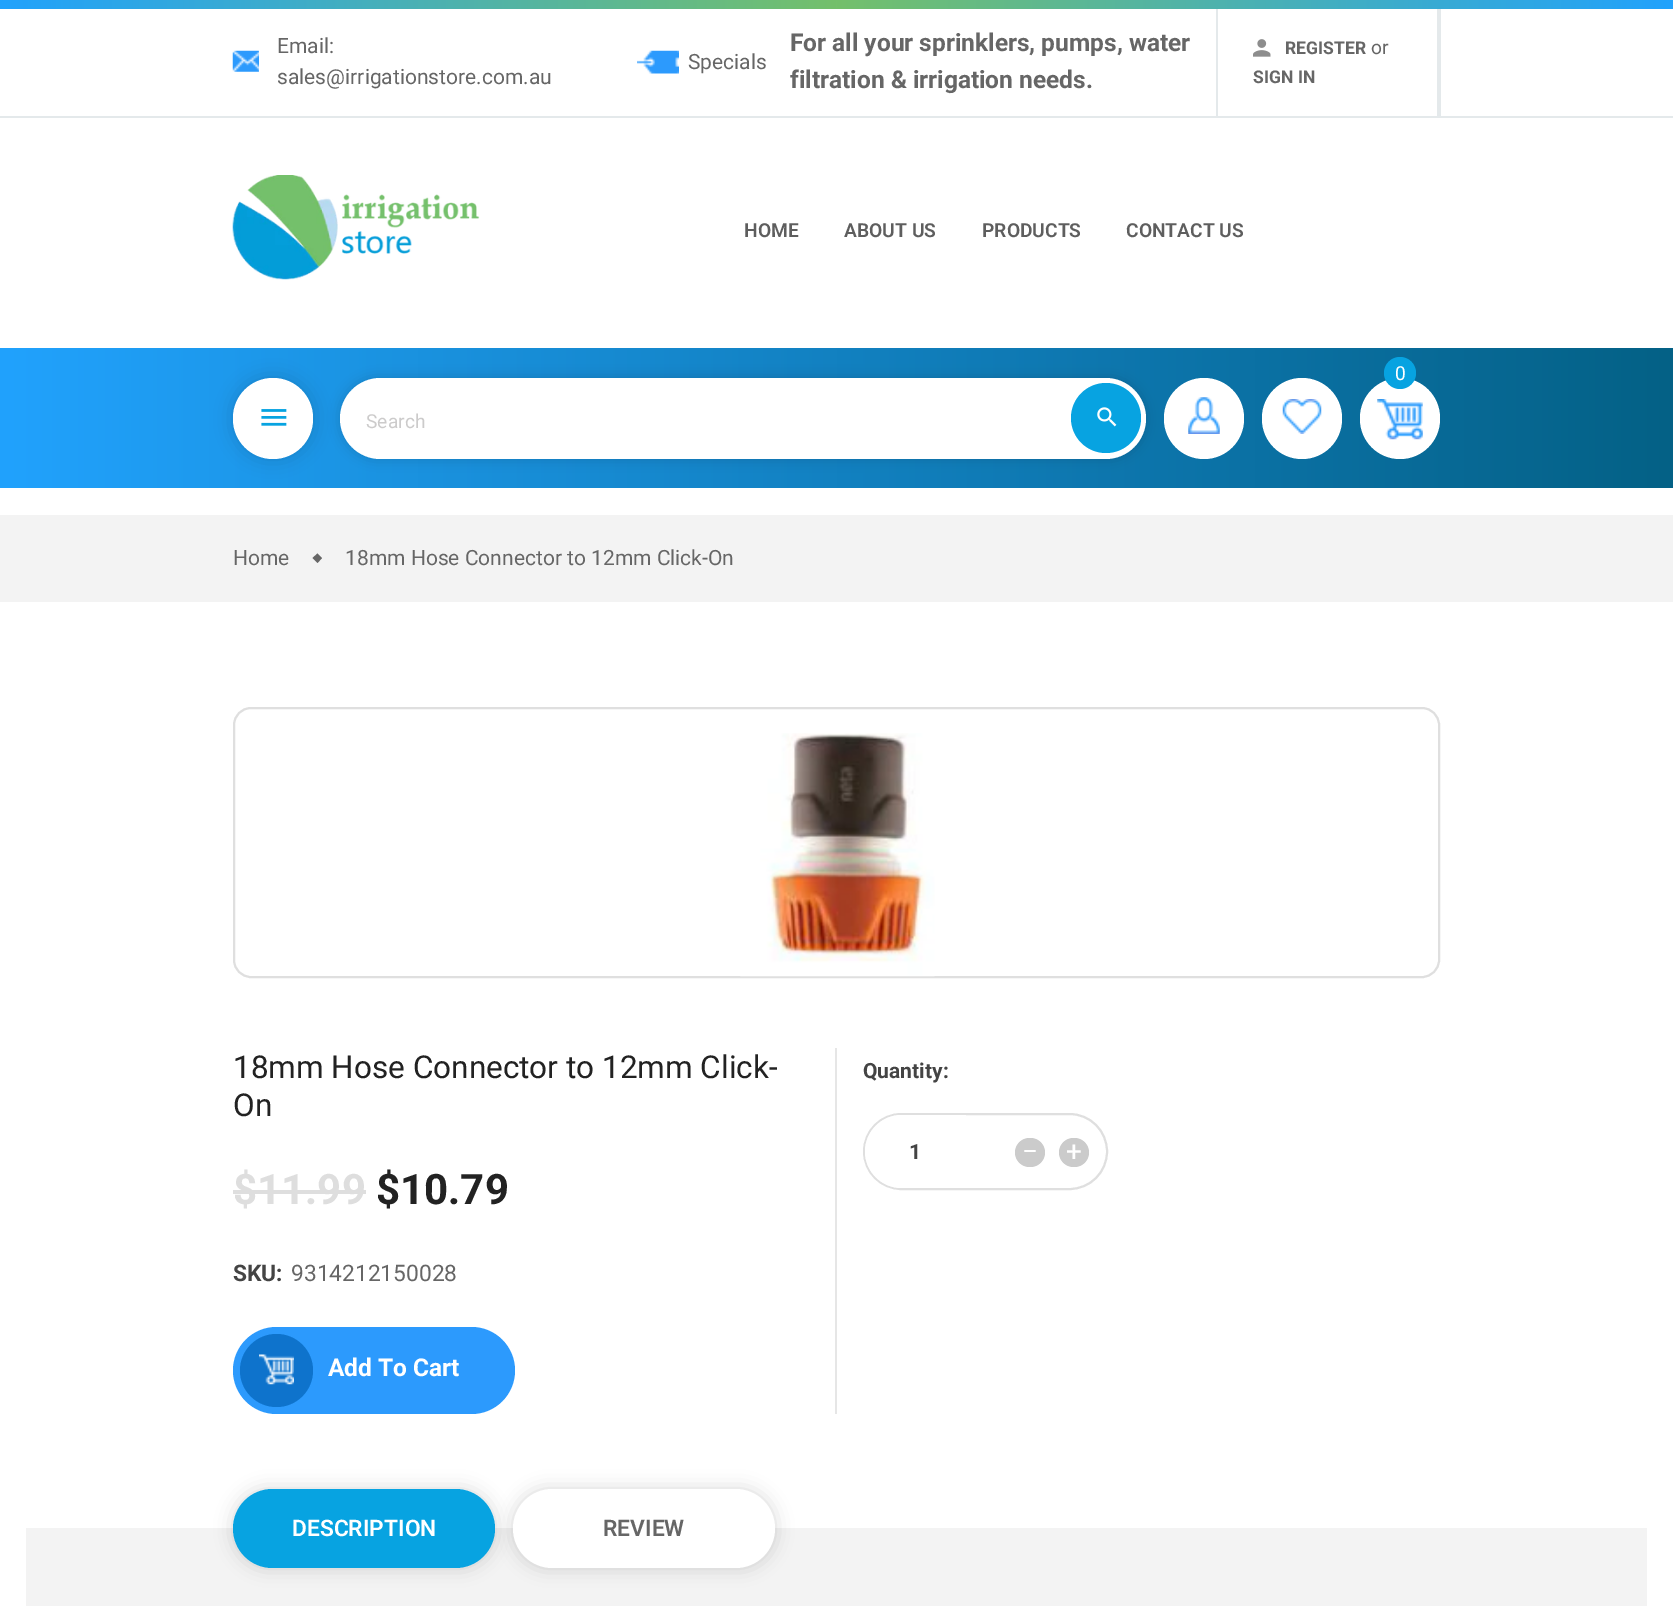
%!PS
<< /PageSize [1673 1606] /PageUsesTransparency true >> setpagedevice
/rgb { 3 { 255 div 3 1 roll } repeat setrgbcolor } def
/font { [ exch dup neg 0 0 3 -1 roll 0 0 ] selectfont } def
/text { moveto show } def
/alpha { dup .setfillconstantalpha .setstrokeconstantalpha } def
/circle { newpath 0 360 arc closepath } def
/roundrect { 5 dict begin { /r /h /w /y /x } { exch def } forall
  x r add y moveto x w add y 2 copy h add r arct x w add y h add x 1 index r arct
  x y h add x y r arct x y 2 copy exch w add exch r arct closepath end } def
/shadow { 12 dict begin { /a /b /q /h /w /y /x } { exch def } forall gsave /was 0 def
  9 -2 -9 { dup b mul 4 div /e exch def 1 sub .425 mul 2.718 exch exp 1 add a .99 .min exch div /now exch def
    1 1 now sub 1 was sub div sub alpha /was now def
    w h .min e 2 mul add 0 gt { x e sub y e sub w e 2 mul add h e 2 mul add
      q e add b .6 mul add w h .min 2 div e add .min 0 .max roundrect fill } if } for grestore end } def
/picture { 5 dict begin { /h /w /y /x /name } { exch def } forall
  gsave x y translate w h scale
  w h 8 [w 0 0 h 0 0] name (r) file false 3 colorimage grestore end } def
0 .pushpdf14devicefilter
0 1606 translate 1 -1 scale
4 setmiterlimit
255 255 255 rgb
0 0 1673 1606 rectfill
228 233 235 rgb
0 116 1673 2 rectfill
gsave 0 0 moveto 1673 0 rlineto 0 9 rlineto -1673 0 rlineto closepath clip newpath
<< /ShadingType 2 /ColorSpace /DeviceRGB /Coords [0 4.4 1673 4.4] /Extend [true true] /Function << /FunctionType 3 /Domain [0 1] /Functions [<< /FunctionType 2 /Domain [0 1] /C0 [0.129 0.635 0.992] /C1 [0.455 0.753 0.42] /N 1 >> << /FunctionType 2 /Domain [0 1] /C0 [0.455 0.753 0.42] /C1 [0.129 0.635 0.992] /N 1 >>] /Bounds [0.5] /Encode [0 1 0 1] >> >> shfill grestore
(img_01.rgb) 232 50 27 22 picture
(img_02.rgb) 637 50 42 24 picture
1437 9 4 107 rectfill
1216 9 2 107 rectfill
(img_03.rgb) 1253 39 18 18 picture
(img_04.rgb) 232 175 248 105 picture
gsave 0 348 moveto 1673 0 rlineto 0 140 rlineto -1673 0 rlineto closepath clip newpath
<< /ShadingType 2 /ColorSpace /DeviceRGB /Coords [0 418 1673 418] /Extend [true true] /Function << /FunctionType 2 /Domain [0 1] /C0 [0.129 0.635 0.992] /C1 [0.016 0.38 0.525] /N 1 >> >> shfill grestore
0 0 0 rgb
233 378 80 81 40 9 0.15 shadow
255 255 255 rgb
233 378 80 81 40 roundrect fill
(img_05.rgb) 261 409 26 17 picture
1360 378 80 81 40 roundrect fill
7 163 225 rgb
1400 373 16 circle fill
(img_06.rgb) 1377 399 46 41 picture
255 255 255 rgb
1164 378 80 81 40 roundrect fill
(img_07.rgb) 1188 397 32 37 picture
1262 378 80 81 40 roundrect fill
(img_08.rgb) 1282 399 40 35 picture
0 0 0 rgb
340 378 806 81 40.5 6 0.15 shadow
255 255 255 rgb
340 378 806 81 40.5 roundrect fill
7 163 225 rgb
1106 418 35 circle fill
(img_09.rgb) 1097 407 20 20 picture
243 243 243 rgb
0 515 1673 87 rectfill
102 102 102 rgb
317.5 553.5 moveto 4.5 4.5 rlineto -4.5 5 rlineto -5 -5 rlineto closepath fill
223 223 223 rgb
2 setlinewidth
234 708 1205 269 17 roundrect stroke
(img_10.rgb) 740 733 195 244 picture
230 230 230 rgb
835 1048 2 366 rectfill
222 222 222 rgb
233 1190 133 4 rectfill
44 154 253 rgb
233 1327 282 87 43.5 roundrect fill
14 115 204 rgb
276.5 1370.5 36.5 circle fill
(img_11.rgb) 259 1354 35 31 picture
223 223 223 rgb
864 1114 243 75 37.5 roundrect stroke
255 255 255 rgb
901.5 1115 moveto 64.5 0 rlineto 0 73 rlineto -64.5 0 rlineto -20 0 -36.5 -16.5 -36.5 -36.5 rcurveto 0 -20 16.5 -36.5 36.5 -36.5 rcurveto closepath fill
203 203 203 rgb
1015 1138 30 29 14.5 roundrect fill
1059 1138 30 29 14.5 roundrect fill
243 243 243 rgb
26 1528 1621 78 rectfill
0 0 0 rgb
233 1489 262 79 39.5 9 0.15 shadow
7 163 225 rgb
233 1489 262 79 39.5 roundrect fill
0 0 0 rgb
513 1489 262 79 39.5 9 0.15 shadow
255 255 255 rgb
513 1489 262 79 39.5 roundrect fill
/Roboto-Regular 21 font
102 102 102 rgb
(Email:) 277 53 text
(sales@irrigationstore.com.au) 277 84 text
(Specials) 688 69 text
/Roboto-Bold 24.5 font
(For all your sprinklers, pumps, water) 790 51 text
(filtration & irrigation needs.) 790 88 text
/Roboto-Bold 17.5 font
(REGISTER) 1285 54 text
/Roboto-Regular 19.25 font
(or) 1371 54 text
/Roboto-Bold 17.5 font
(SIGN IN) 1253 83 text
/Roboto-SemiBold 19.25 font
94 94 94 rgb
(HOME) 744 237 text
(ABOUT US) 844 237 text
(PRODUCTS) 982 237 text
(CONTACT US) 1126 237 text
/Roboto-Regular 19.25 font
255 255 255 rgb
(0) 1395 380 text
204 203 203 rgb
(Search) 366 428 text
/Roboto-Regular 21 font
102 102 102 rgb
(Home) 233 565 text
(18mm Hose Connector to 12mm Click-On) 345 565 text
/Roboto-Regular 31.5 font
34 34 34 rgb
(18mm Hose Connector to 12mm Click-) 233 1078 text
(On) 233 1116 text
/Roboto-Bold 42 font
222 222 222 rgb
($11.99) 233 1204 text
34 34 34 rgb
($10.79) 376 1204 text
/Roboto-Bold 22.75 font
68 68 68 rgb
(SKU:) 233 1281 text
/Roboto-Regular 22.75 font
102 102 102 rgb
(9314212150028) 291 1281 text
/Roboto-Bold 24.5 font
255 255 255 rgb
(Add To Cart) 328 1376 text
/Roboto-Bold 21 font
68 68 68 rgb
(Quantity:) 863 1078 text
(1) 909 1159 text
/Roboto-Regular 28 font
255 255 255 rgb
(−) 1022 1161 text
(+) 1066 1161 text
/Roboto-SemiBold 22.75 font
(DESCRIPTION) 292 1536 text
102 102 102 rgb
(REVIEW) 603 1536 text
.poppdf14devicefilter showpage
